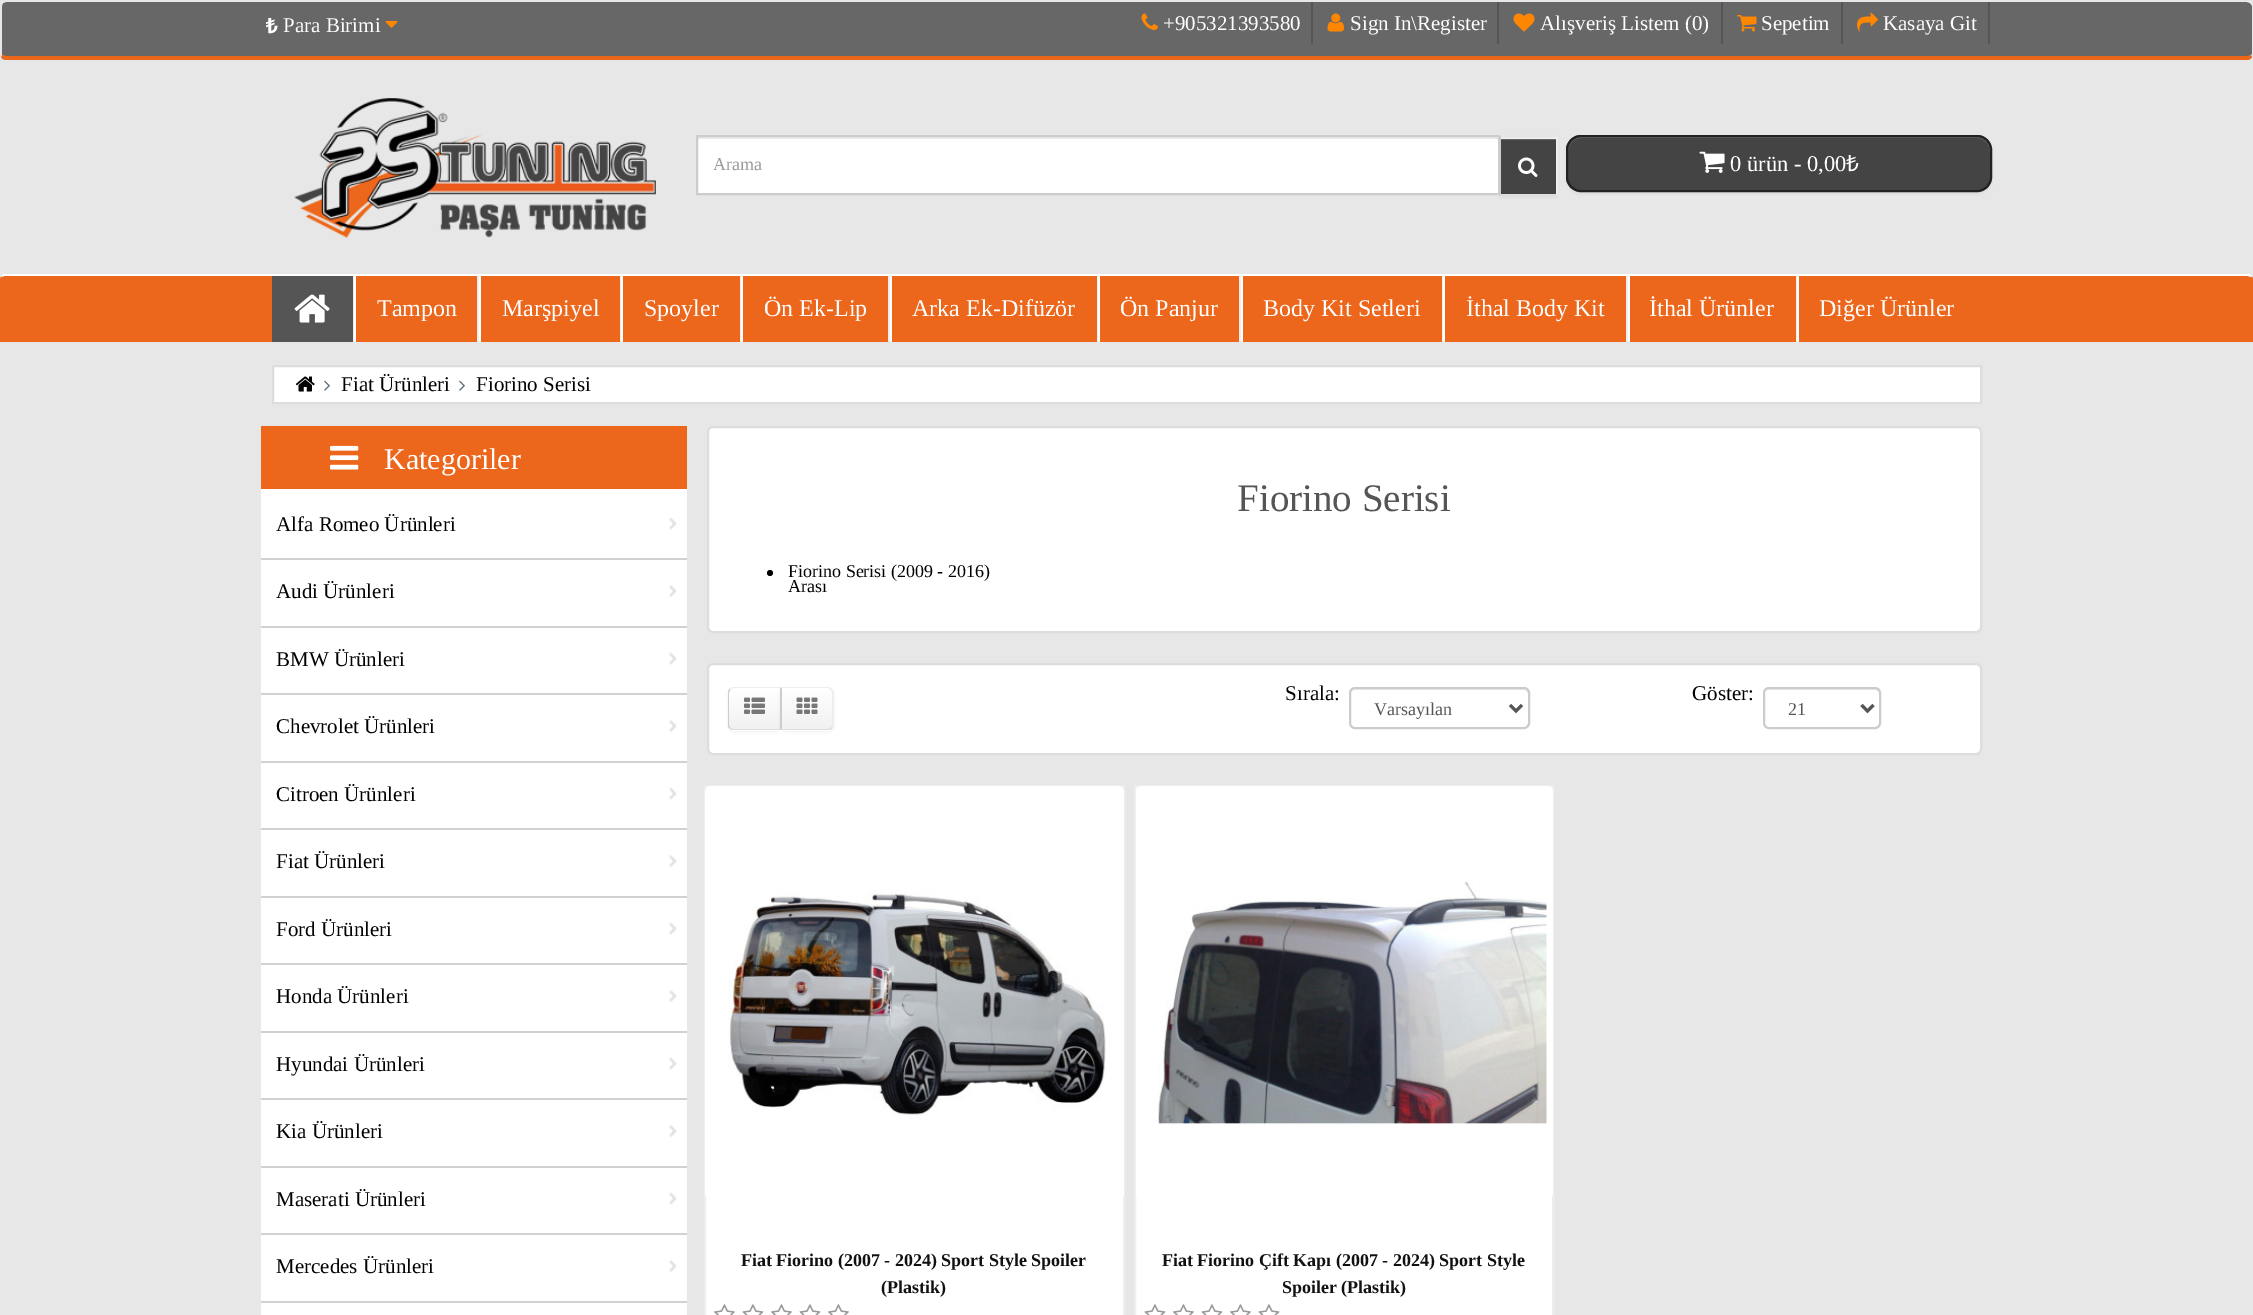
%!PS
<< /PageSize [2253 1315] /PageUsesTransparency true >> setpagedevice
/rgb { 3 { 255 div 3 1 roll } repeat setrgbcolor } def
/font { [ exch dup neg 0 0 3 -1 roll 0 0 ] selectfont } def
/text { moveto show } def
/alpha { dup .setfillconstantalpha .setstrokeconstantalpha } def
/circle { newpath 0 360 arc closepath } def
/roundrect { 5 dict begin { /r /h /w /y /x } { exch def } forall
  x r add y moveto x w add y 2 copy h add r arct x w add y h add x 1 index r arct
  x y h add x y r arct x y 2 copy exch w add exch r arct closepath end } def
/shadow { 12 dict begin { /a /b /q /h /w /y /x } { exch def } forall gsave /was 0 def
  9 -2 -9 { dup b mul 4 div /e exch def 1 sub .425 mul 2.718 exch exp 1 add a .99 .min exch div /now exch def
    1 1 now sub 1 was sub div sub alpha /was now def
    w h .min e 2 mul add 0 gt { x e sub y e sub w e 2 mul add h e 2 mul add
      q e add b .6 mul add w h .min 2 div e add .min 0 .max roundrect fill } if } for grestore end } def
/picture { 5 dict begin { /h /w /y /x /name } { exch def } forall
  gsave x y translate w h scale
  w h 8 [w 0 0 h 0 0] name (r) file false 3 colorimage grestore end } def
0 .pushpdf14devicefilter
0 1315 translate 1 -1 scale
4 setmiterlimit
231 231 231 rgb
0 0 2253 1315 rectfill
103 103 103 rgb
6 2 moveto 2241 0 rlineto 2 0 5 2 5 4 rcurveto 0 48 rlineto 0 1 -3 2 -5 2 rcurveto -2241 0 rlineto -2 0 -4 -1 -4 -2 rcurveto 0 -48 rlineto 0 -2 2 -4 4 -4 rcurveto closepath fill
231 231 231 rgb
6 0 moveto -2 0 -3 1 -4 2 rcurveto 1 1 rlineto 3 -1 rlineto 2241 0 rlineto 3 1 rlineto 1 -1 rlineto -1 -1 -3 -2 -4 -2 rcurveto closepath fill
2253 54 moveto 0 -48 rlineto 0 -2 -1 -3 -2 -4 rcurveto -1 1 rlineto 1 1 2 2 2 3 rcurveto 0 48 rlineto -1 1 rlineto 1 2 rlineto closepath fill
236 102 27 rgb
6 60 moveto 2241 0 rlineto 2 0 4 -1 5 -3 rcurveto -1 -2 rlineto -1 1 -3 1 -4 1 rcurveto -2241 0 rlineto -2 0 -4 -1 -4 -2 rcurveto -1 3 rlineto 1 2 3 3 5 3 rcurveto closepath fill
231 231 231 rgb
0 6 moveto 0 48 rlineto 1 3 rlineto 1 -3 rlineto 0 -48 rlineto 0 -1 0 -2 1 -3 rcurveto -1 -1 rlineto -1 1 -2 2 -2 4 rcurveto closepath fill
(img_01.rgb) 385 21 13 7 picture
85 85 85 rgb
1311 2 2 42 rectfill
(img_02.rgb) 1141 13 17 17 picture
1497 2 2 42 rectfill
(img_03.rgb) 1327 13 17 19 picture
1721 2 2 42 rectfill
(img_04.rgb) 1513 13 22 19 picture
1841 2 2 42 rectfill
(img_05.rgb) 1737 15 20 17 picture
1988 2 2 42 rectfill
(img_06.rgb) 1857 12 21 20 picture
(img_07.rgb) 294 98 362 140 picture
0 0 0 rgb
1499 138 58 59 0 1.5 0.05 shadow
255 255 255 rgb
698 139 800 54 rectfill
236 236 236 rgb
698 137 801 2 rectfill
238 238 238 rgb
1499 137 58 2 rectfill
1556 137 2 58 rectfill
221 221 221 rgb
1499 194 58 2 rectfill
204 204 204 rgb
2 setlinewidth
697 136 802 58 rectstroke
68 68 68 rgb
1501 140 55 54 rectfill
105 105 105 rgb
1500 139 56 1 rectfill
204 204 204 rgb
1500 137 1 58 rectfill
(img_08.rgb) 1518 157 20 20 picture
0 0 0 rgb
1566 137 426 57 15 1.5 0.05 shadow
68 68 68 rgb
1566 135 426 57 15 roundrect fill
105 105 105 rgb
1581 138 moveto 396 0 rlineto 7 0 13 6 13 14 rcurveto 0 26 rlineto 0 3 -1 6 -2 8 rcurveto 2 -2 3 -6 3 -9 rcurveto 0 -26 rlineto 0 -8 -6 -14 -14 -14 rcurveto -395 0 rlineto -8 0 -14 6 -14 14 rcurveto 0 1 rlineto 0 -8 6 -14 13 -14 rcurveto closepath fill
34 34 34 rgb
1567 136 424 55 14 roundrect stroke
(img_09.rgb) 1699 151 26 22 picture
236 102 28 rgb
5 275 moveto 2243 0 rlineto 3 0 5 2 5 5 rcurveto 0 62 rlineto -2253 0 rlineto 0 -62 rlineto 0 -3 2 -5 5 -5 rcurveto closepath fill
255 255 255 rgb
4 276 moveto -2 1 rlineto -1 -1 rlineto 2 -2 rlineto 2247 0 rlineto 2 2 rlineto -1 1 rlineto -3 -1 rlineto closepath fill
85 85 85 rgb
272 276 81 66 rectfill
238 238 238 rgb
353 276 1 66 rectfill
(img_10.rgb) 294 294 36 29 picture
477 276 2 66 rectfill
255 255 255 rgb
354 276 2 66 rectfill
238 238 238 rgb
620 276 1 66 rectfill
255 255 255 rgb
479 276 2 66 rectfill
238 238 238 rgb
740 276 1 66 rectfill
255 255 255 rgb
621 276 2 66 rectfill
238 238 238 rgb
888 276 2 66 rectfill
255 255 255 rgb
741 276 2 66 rectfill
238 238 238 rgb
1097 276 1 66 rectfill
255 255 255 rgb
890 276 2 66 rectfill
238 238 238 rgb
1239 276 2 66 rectfill
255 255 255 rgb
1098 276 2 66 rectfill
238 238 238 rgb
1442 276 1 66 rectfill
255 255 255 rgb
1241 276 2 66 rectfill
238 238 238 rgb
1626 276 2 66 rectfill
255 255 255 rgb
1443 276 2 66 rectfill
238 238 238 rgb
1796 276 1 66 rectfill
255 255 255 rgb
1628 276 2 66 rectfill
1797 276 2 66 rectfill
273 366 moveto 1708 0 rlineto 0 37 rlineto -1708 0 rlineto closepath gsave fill grestore
221 221 221 rgb
stroke
(img_11.rgb) 295 376 20 16 picture
(img_12.rgb) 324 380 6 11 picture
(img_12.rgb) 459 380 6 11 picture
255 255 255 rgb
261 489 426 826 rectfill
236 102 27 rgb
261 426 426 63 rectfill
(img_13.rgb) 330 445 29 25 picture
(img_14.rgb) 669 517 8 13 picture
(img_15.rgb) 669 585 8 12 picture
209 209 209 rgb
261 558 426 2 rectfill
(img_14.rgb) 669 652 8 13 picture
261 626 426 2 rectfill
(img_15.rgb) 669 720 8 12 picture
261 693 426 2 rectfill
(img_14.rgb) 669 787 8 13 picture
261 761 426 2 rectfill
(img_15.rgb) 669 855 8 12 picture
261 828 426 2 rectfill
(img_14.rgb) 669 922 8 13 picture
261 896 426 2 rectfill
(img_15.rgb) 669 990 8 12 picture
261 963 426 2 rectfill
(img_14.rgb) 669 1057 8 13 picture
261 1031 426 2 rectfill
(img_15.rgb) 669 1125 8 12 picture
261 1098 426 2 rectfill
(img_14.rgb) 669 1192 8 13 picture
261 1166 426 2 rectfill
(img_15.rgb) 669 1260 8 12 picture
261 1233 426 2 rectfill
261 1301 426 2 rectfill
255 255 255 rgb
708 427 1273 205 5 roundrect gsave fill grestore
221 221 221 rgb
stroke
0 0 0 rgb
770 573 3 circle fill
255 255 255 rgb
708 664 1273 90 5 roundrect gsave fill grestore
221 221 221 rgb
stroke
0 0 0 rgb
728 689 54 43 6 1.5 0.05 shadow
255 255 255 rgb
734 687 moveto 48 0 rlineto 0 44 rlineto -48 0 rlineto -3.5 0 -6 -2.5 -6 -6 rcurveto 0 -32 rlineto 0 -3.5 2.5 -6 6 -6 rcurveto closepath fill
gsave
734 687 moveto 48 0 rlineto 0 44 rlineto -48 0 rlineto -3.5 0 -6 -2.5 -6 -6 rcurveto 0 -32 rlineto 0 -3.5 2.5 -6 6 -6 rcurveto closepath clip newpath
gsave 728 689 moveto 52 0 rlineto 0 40 rlineto -52 0 rlineto closepath clip newpath
<< /ShadingType 2 /ColorSpace /DeviceRGB /Coords [755 689 755 729] /Extend [true true] /Function << /FunctionType 2 /Domain [0 1] /C0 [1 1 1] /C1 [0.945 0.945 0.945] /N 1 >> >> shfill grestore
grestore
238 238 238 rgb
734 687 moveto -2 0 -4 1 -5 2 rcurveto 1 1 rlineto 1 -1 2 -2 4 -2 rcurveto 46 0 rlineto 2 -1 rlineto closepath fill
221 221 221 rgb
781 730 moveto -47 0 rlineto -2 0 -4 0 -4 -2 rcurveto 1 0 2 1 4 1 rcurveto 46 0 rlineto closepath fill
204 204 204 rgb
729.5 689 moveto -1 1 -1.5 2.5 -1.5 4 rcurveto 0 31 rlineto 0 2 0.5 3.5 1.5 4.5 rcurveto 1 -1 rlineto -1 -0.5 -1.5 -2 -1.5 -3.5 rcurveto 0 -31 rlineto 0 -1 0.5 -2 1.5 -3 rcurveto closepath fill
(img_16.rgb) 744 697 21 17 picture
0 0 0 rgb
780 689 54 43 6 1.5 0.05 shadow
255 255 255 rgb
780 687 moveto 48 0 rlineto 3.5 0 6 2.5 6 6 rcurveto 0 32 rlineto 0 3.5 -2.5 6 -6 6 rcurveto -48 0 rlineto closepath fill
gsave
780 687 moveto 48 0 rlineto 3.5 0 6 2.5 6 6 rcurveto 0 32 rlineto 0 3.5 -2.5 6 -6 6 rcurveto -48 0 rlineto closepath clip newpath
gsave 781 689 moveto 53 0 rlineto 0 40 rlineto -53 0 rlineto closepath clip newpath
<< /ShadingType 2 /ColorSpace /DeviceRGB /Coords [807 689 807 729] /Extend [true true] /Function << /FunctionType 2 /Domain [0 1] /C0 [1 1 1] /C1 [0.945 0.945 0.945] /N 1 >> >> shfill grestore
grestore
238 238 238 rgb
780 687 moveto 2 2 rlineto 0 -1 rlineto 46 0 rlineto 3 2 rlineto 1 -1 rlineto -1 -1 -2 -2 -4 -2 rcurveto closepath fill
834 724 moveto 0 -31 rlineto 0 -1.5 -1 -3 -2 -4 rcurveto -1 1 rlineto 0.5 1 1 2 1 3 rcurveto 0 31 rlineto 0 1.5 -0.5 2.5 -1 3.5 rcurveto 1 1 rlineto 1 -1 2 -2.5 2 -4.5 rcurveto closepath fill
221 221 221 rgb
832 729 moveto -1 1 -3 1 -4 1 rcurveto -48 0 rlineto 2 -2 rlineto 0 1 rlineto 47 0 rlineto 2 -2 rlineto closepath fill
204 204 204 rgb
780 687 moveto 0 43 rlineto 2 -2 rlineto 0 -39 rlineto closepath fill
(img_17.rgb) 796 697 22 17 picture
236 236 236 rgb
1354 690 moveto 170 0 rlineto 2 0 4 2 4 4 rcurveto 0 30 rlineto -1 3 rlineto 1 -1 2 -3 2 -4 rcurveto 0 -29 rlineto 0 -3 -2 -5 -5 -5 rcurveto -169 0 rlineto -3 0 -5 2 -5 5 rcurveto 0 -2 2 -4 4 -4 rcurveto closepath fill
204 204 204 rgb
1350 688 179 40 5 roundrect stroke
85 85 85 rgb
3 setlinewidth
1510 705 moveto 6 6 rlineto 6 -6 rlineto stroke
236 236 236 rgb
1768 690 moveto 107 0 rlineto 2 0 5 2 5 4 rcurveto 0 -3 -2 -5 -5 -5 rcurveto -106 0 rlineto -3 0 -5 2 -5 5 rcurveto 0 -2 2 -4 4 -4 rcurveto closepath fill
204 204 204 rgb
2 setlinewidth
1764 688 116 40 5 roundrect stroke
85 85 85 rgb
3 setlinewidth
1861.5 705 moveto 6 6 rlineto 6 -6 rlineto stroke
255 255 255 rgb
705 786 moveto 419 0 rlineto 0 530 rlineto -419 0 rlineto closepath gsave fill grestore
238 238 238 rgb
2 setlinewidth
stroke
255 255 255 rgb
705 786 419 413 6 roundrect fill
(img_18.rgb) 727 890 379 226 picture
(img_19.rgb) 714 1304 21 11 picture
(img_20.rgb) 742 1304 22 11 picture
(img_19.rgb) 771 1304 21 11 picture
(img_20.rgb) 799 1304 22 11 picture
(img_19.rgb) 828 1304 21 11 picture
1135 786 moveto 418 0 rlineto 0 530 rlineto -418 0 rlineto closepath gsave fill grestore
238 238 238 rgb
stroke
255 255 255 rgb
1136 786 417 413 6 roundrect fill
(img_21.rgb) 1158 881 389 244 picture
(img_20.rgb) 1144 1304 22 11 picture
(img_19.rgb) 1173 1304 21 11 picture
(img_20.rgb) 1201 1304 22 11 picture
(img_19.rgb) 1230 1304 21 11 picture
(img_20.rgb) 1258 1304 22 11 picture
/NotoSans-Bold 21 font
(₺) 266 33 text
/LiberationSerif-Regular 21 font
(Para Birimi) 283 32 text
(+905321393580) 1163 30 text
(Sign In\\Register) 1350 30 text
(Alışveriş Listem \(0\)) 1540 30 text
(Sepetim) 1761 30 text
(Kasaya Git) 1883 30 text
/LiberationSerif-Regular 18 font
153 153 153 rgb
(Arama) 713 170 text
/LiberationSerif-Regular 22.5 font
255 255 255 rgb
(0 ürün - 0,00) 1730 171 text
/NotoSans-Regular 22.5 font
(₺) 1846 171 text
/LiberationSerif-Regular 24 font
(Tampon) 377 316 text
(Marşpiyel) 502 316 text
(Spoyler) 644 316 text
(Ön Ek-Lip) 764 316 text
(Arka Ek-Difüzör) 912 316 text
(Ön Panjur) 1120 316 text
(Body Kit Setleri) 1263 316 text
(İthal Body Kit) 1466 316 text
(İthal Ürünler) 1649 316 text
(Diğer Ürünler) 1819 316 text
/LiberationSerif-Regular 21 font
0 0 0 rgb
(Fiat Ürünleri) 341 391 text
(Fiorino Serisi) 476 391 text
/LiberationSerif-Regular 30 font
255 255 255 rgb
(Kategoriler) 384 469 text
/LiberationSerif-Regular 21 font
0 0 0 rgb
(Alfa Romeo Ürünleri) 276 531 text
(Audi Ürünleri) 276 598 text
(BMW Ürünleri) 276 666 text
(Chevrolet Ürünleri) 276 733 text
(Citroen Ürünleri) 276 801 text
(Fiat Ürünleri) 276 868 text
(Ford Ürünleri) 276 936 text
(Honda Ürünleri) 276 1003 text
(Hyundai Ürünleri) 276 1071 text
(Kia Ürünleri) 276 1138 text
(Maserati Ürünleri) 276 1206 text
(Mercedes Ürünleri) 276 1273 text
/LiberationSerif-Regular 39 font
85 85 85 rgb
(Fiorino Serisi) 1237 511 text
/LiberationSerif-Regular 18 font
0 0 0 rgb
(Fiorino Serisi \(2009 - 2016\)) 788 577 text
(Arası) 788 592 text
/LiberationSerif-Regular 21 font
(Sırala:) 1285 700 text
(Göster:) 1692 700 text
/LiberationSerif-Regular 18 font
85 85 85 rgb
(Varsayılan) 1374 715 text
(21) 1788 715 text
/LiberationSerif-Bold 18 font
17 17 17 rgb
(Fiat Fiorino \(2007 - 2024\) Sport Style Spoiler) 741 1266 text
(\(Plastik\)) 881 1293 text
(Fiat Fiorino Çift Kapı \(2007 - 2024\) Sport Style) 1162 1266 text
(Spoiler \(Plastik\)) 1282 1293 text
.poppdf14devicefilter showpage
